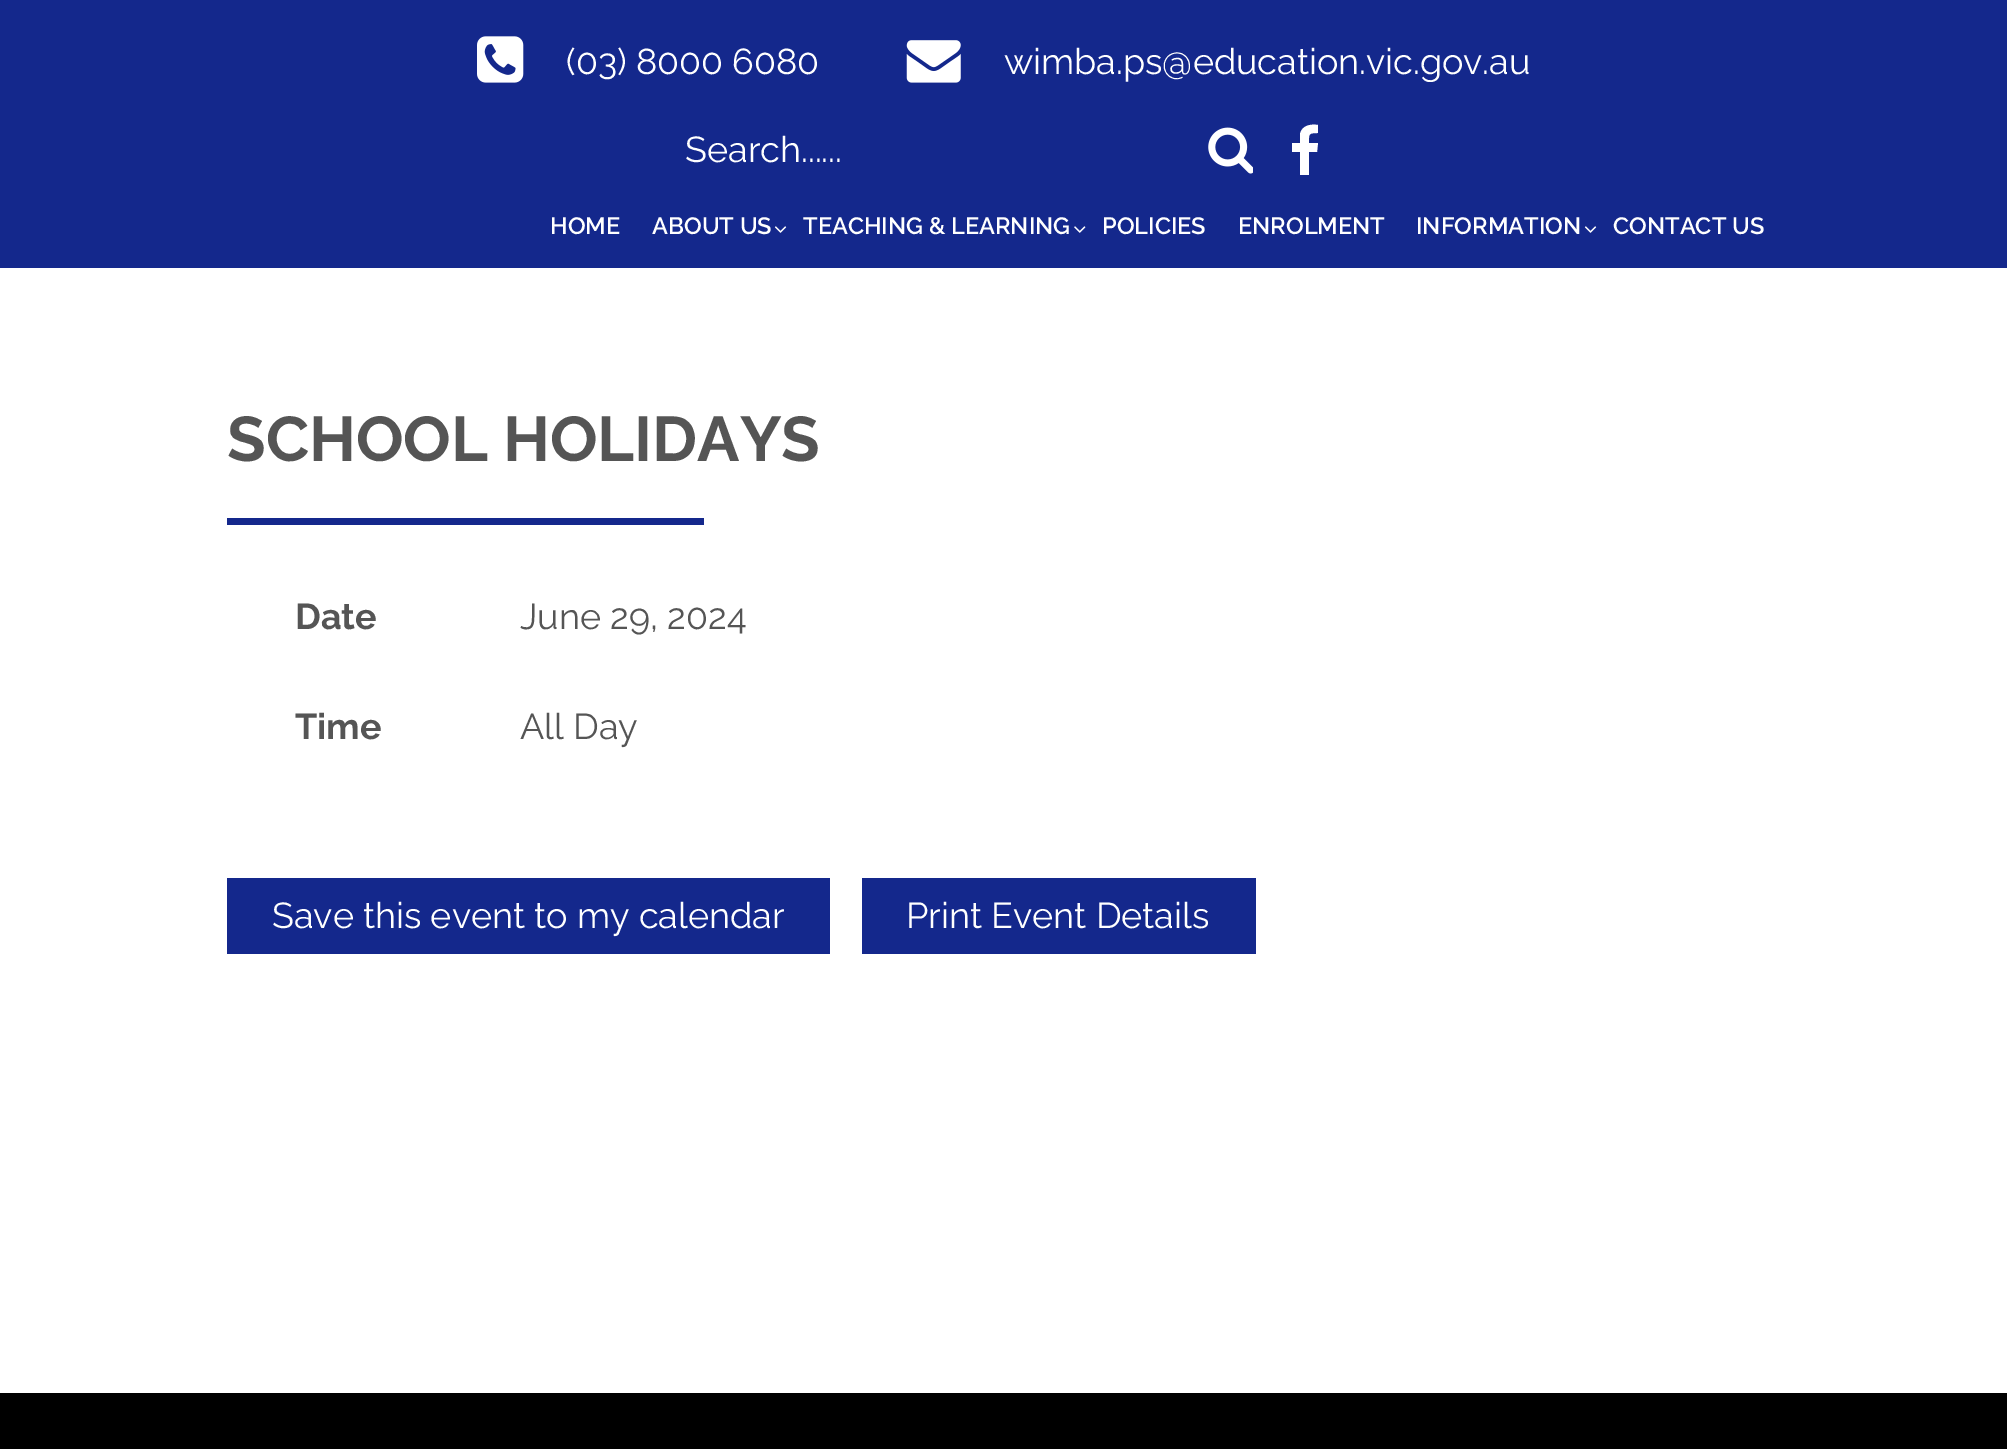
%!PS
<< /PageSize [2007 1449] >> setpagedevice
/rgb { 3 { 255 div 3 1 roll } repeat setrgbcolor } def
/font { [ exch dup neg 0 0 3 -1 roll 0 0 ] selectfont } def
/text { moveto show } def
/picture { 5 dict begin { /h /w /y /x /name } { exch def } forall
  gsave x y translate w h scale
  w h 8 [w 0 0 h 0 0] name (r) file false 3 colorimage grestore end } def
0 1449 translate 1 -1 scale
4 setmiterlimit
255 255 255 rgb
0 0 2007 1449 rectfill
20 40 140 rgb
0 0 2007 268 rectfill
(img_01.rgb) 477 36 47 47 picture
(img_02.rgb) 906 40 55 43 picture
(img_03.rgb) 1208 127 45 47 picture
255 255 255 rgb
1318 125 moveto -7 -1 -16 0 -18 9 rcurveto 0 9 rlineto -8 0 rlineto 0 9 rlineto 8 0 rlineto 0 23 rlineto 9 0 rlineto 0 -23 rlineto 8 0 rlineto 1 -9 rlineto -9 0 rlineto 0 -9 -1 -10 9 -10 rcurveto closepath fill
(img_04.rgb) 774 226 13 7 picture
(img_05.rgb) 1074 226 12 7 picture
(img_04.rgb) 1584 226 13 7 picture
20 40 140 rgb
227 518 477 7 rectfill
227 878 603 76 rectfill
862 878 394 76 rectfill
0 0 0 rgb
0 1393 2007 56 rectfill
/Raleway-Regular 36 font
255 255 255 rgb
(\(03\) 8000 6080) 566 74 text
(wimba.ps@education.vic.gov.au) 1004 74 text
(Search......) 685 162 text
/Raleway-SemiBold 23.6 font
(HOME) 550 234 text
(ABOUT US) 652 234 text
(TEACHING & LEARNING) 803 234 text
(POLICIES) 1102 234 text
(ENROLMENT) 1238 234 text
(INFORMATION) 1416 234 text
(CONTACT US) 1613 234 text
/Raleway-Bold 63 font
85 85 85 rgb
(SCHOOL HOLIDAYS) 227 461 text
/Raleway-Bold 36 font
(Date) 295 629 text
/Raleway-Regular 36 font
(June 29, 2024) 520 629 text
/Raleway-Bold 36 font
(Time) 295 739 text
/Raleway-Regular 36 font
(All Day) 520 739 text
255 255 255 rgb
(Save this event to my calendar) 272 928 text
(Print Event Details) 906 928 text
showpage
